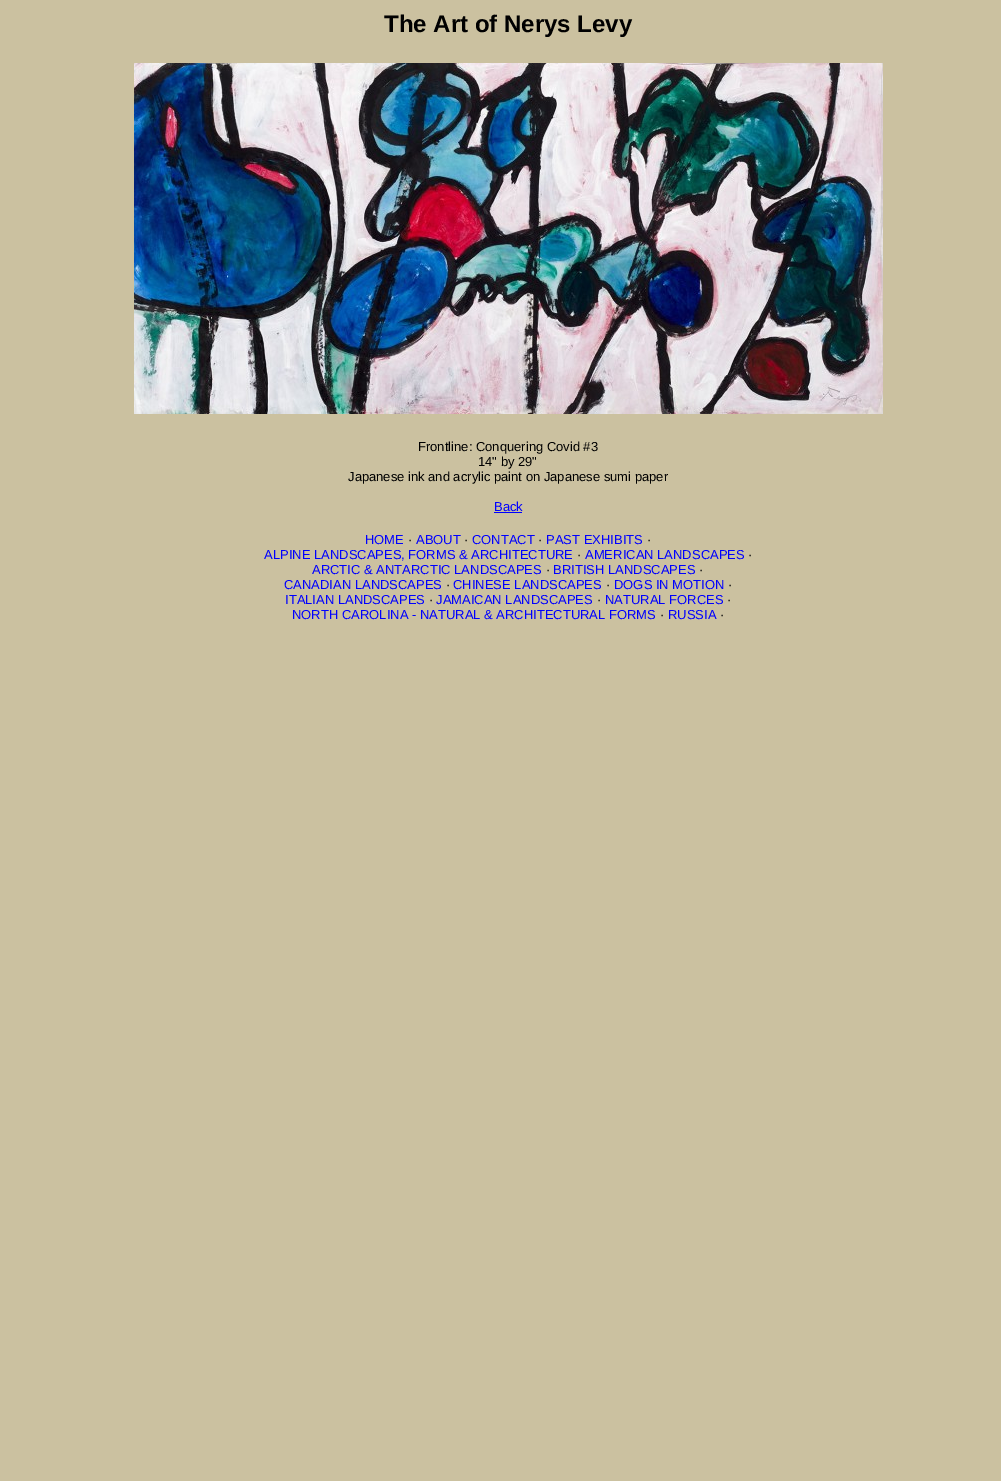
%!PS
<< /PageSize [1001 1481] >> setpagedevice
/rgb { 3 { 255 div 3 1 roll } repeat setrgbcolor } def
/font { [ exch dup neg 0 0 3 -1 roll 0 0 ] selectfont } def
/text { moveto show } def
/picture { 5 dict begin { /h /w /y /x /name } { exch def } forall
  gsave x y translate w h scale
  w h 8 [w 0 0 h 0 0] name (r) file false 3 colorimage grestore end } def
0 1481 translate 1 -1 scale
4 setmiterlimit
203 193 160 rgb
0 0 1001 1481 rectfill
(img_01.rgb) 134 63 749 351 picture
0 0 255 rgb
494 512 28 1 rectfill
/LiberationSans-Bold 24 font
0 0 0 rgb
(The Art of Nerys Levy) 384 32 text
/LiberationSans-Regular 13 font
(Frontline: Conquering Covid #3) 418 451 text
(14" by 29") 478 466 text
(Japanese ink and acrylic paint on Japanese sumi paper) 348 481 text
0 0 255 rgb
(Back) 494 511 text
(HOME) 365 544 text
0 0 0 rgb
(·) 408 544 text
0 0 255 rgb
(ABOUT) 416 544 text
0 0 0 rgb
(·) 464 544 text
0 0 255 rgb
(CONTACT) 472 544 text
0 0 0 rgb
(·) 538 544 text
0 0 255 rgb
(PAST EXHIBITS) 546 544 text
0 0 0 rgb
(·) 647 544 text
0 0 255 rgb
(ALPINE LANDSCAPES, FORMS & ARCHITECTURE) 264 559 text
0 0 0 rgb
(·) 577 559 text
0 0 255 rgb
(AMERICAN LANDSCAPES) 585 559 text
0 0 0 rgb
(·) 748 559 text
0 0 255 rgb
(ARCTIC & ANTARCTIC LANDSCAPES) 312 574 text
0 0 0 rgb
(·) 546 574 text
0 0 255 rgb
(BRITISH LANDSCAPES) 553 574 text
0 0 0 rgb
(·) 699 574 text
0 0 255 rgb
(CANADIAN LANDSCAPES) 284 589 text
0 0 0 rgb
(·) 446 589 text
0 0 255 rgb
(CHINESE LANDSCAPES) 453 589 text
0 0 0 rgb
(·) 606 589 text
0 0 255 rgb
(DOGS IN MOTION) 614 589 text
0 0 0 rgb
(·) 728 589 text
0 0 255 rgb
(ITALIAN LANDSCAPES) 285 604 text
0 0 0 rgb
(·) 429 604 text
0 0 255 rgb
(JAMAICAN LANDSCAPES) 436 604 text
0 0 0 rgb
(·) 597 604 text
0 0 255 rgb
(NATURAL FORCES) 605 604 text
0 0 0 rgb
(·) 727 604 text
0 0 255 rgb
(NORTH CAROLINA - NATURAL & ARCHITECTURAL FORMS) 292 619 text
0 0 0 rgb
(·) 660 619 text
0 0 255 rgb
(RUSSIA) 668 619 text
0 0 0 rgb
(·) 720 619 text
showpage
